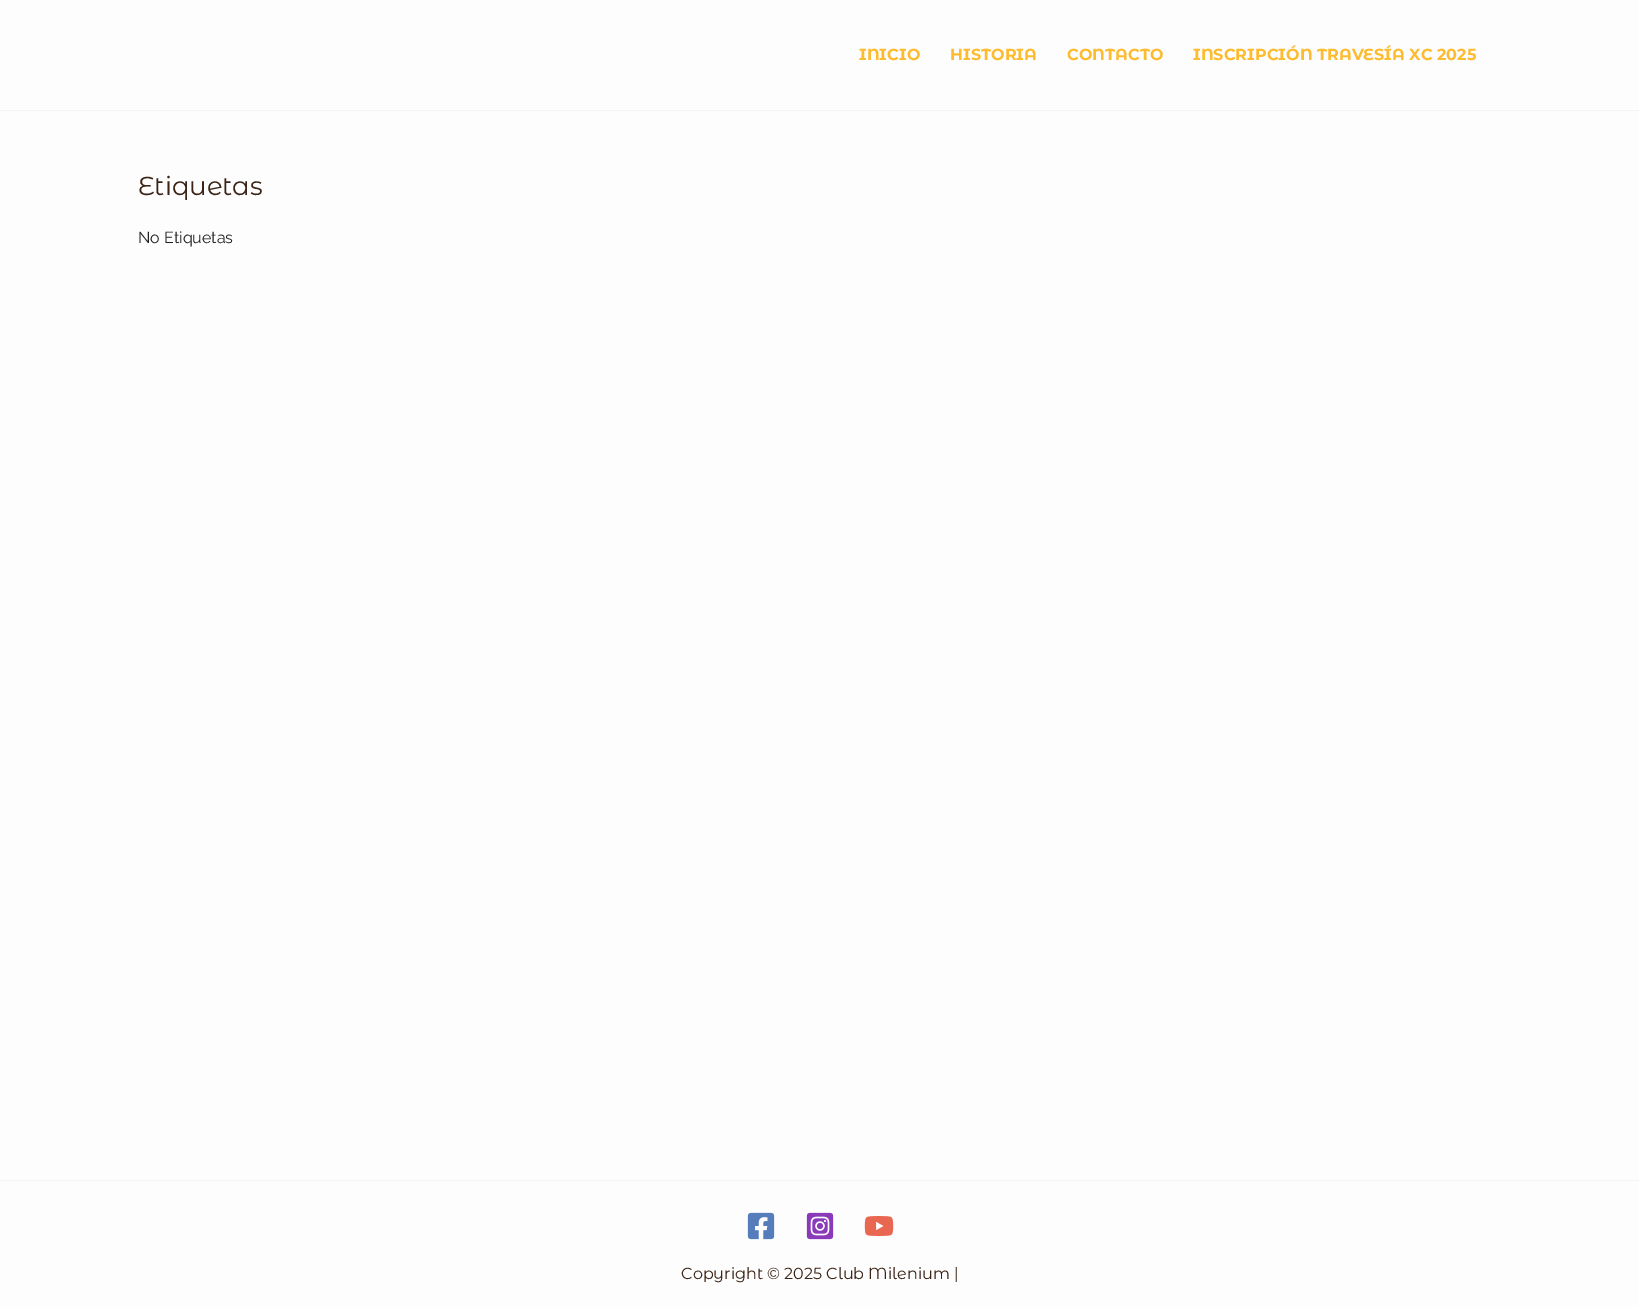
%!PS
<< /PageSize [1639 1307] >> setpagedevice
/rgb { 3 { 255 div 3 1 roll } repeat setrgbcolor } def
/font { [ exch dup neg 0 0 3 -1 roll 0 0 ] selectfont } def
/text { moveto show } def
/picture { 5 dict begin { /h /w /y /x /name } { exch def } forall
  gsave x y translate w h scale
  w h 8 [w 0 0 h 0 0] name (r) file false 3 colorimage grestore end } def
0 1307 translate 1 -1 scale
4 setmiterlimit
253 253 253 rgb
0 0 1639 1307 rectfill
242 245 247 rgb
0 110 1639 1 rectfill
0 1180 1639 1 rectfill
(img_01.rgb) 747 1212 28 28 picture
(img_02.rgb) 806 1212 28 28 picture
(img_03.rgb) 864 1216 30 20 picture
/MontserratAlternates-Bold 16 font
253 187 46 rgb
(INICIO) 859 60 text
(HISTORIA) 950 60 text
(CONTACTO) 1067 60 text
(INSCRIPCIÓN TRAVESÍA XC 2025) 1193 60 text
/MontserratAlternates-Regular 26 font
59 35 21 rgb
(Etiquetas) 138 195 text
/Raleway-Regular 16 font
33 33 33 rgb
(No Etiquetas) 138 243 text
/MontserratAlternates-Regular 16 font
59 35 21 rgb
(Copyright © 2025 Club Milenium |) 681 1279 text
showpage
